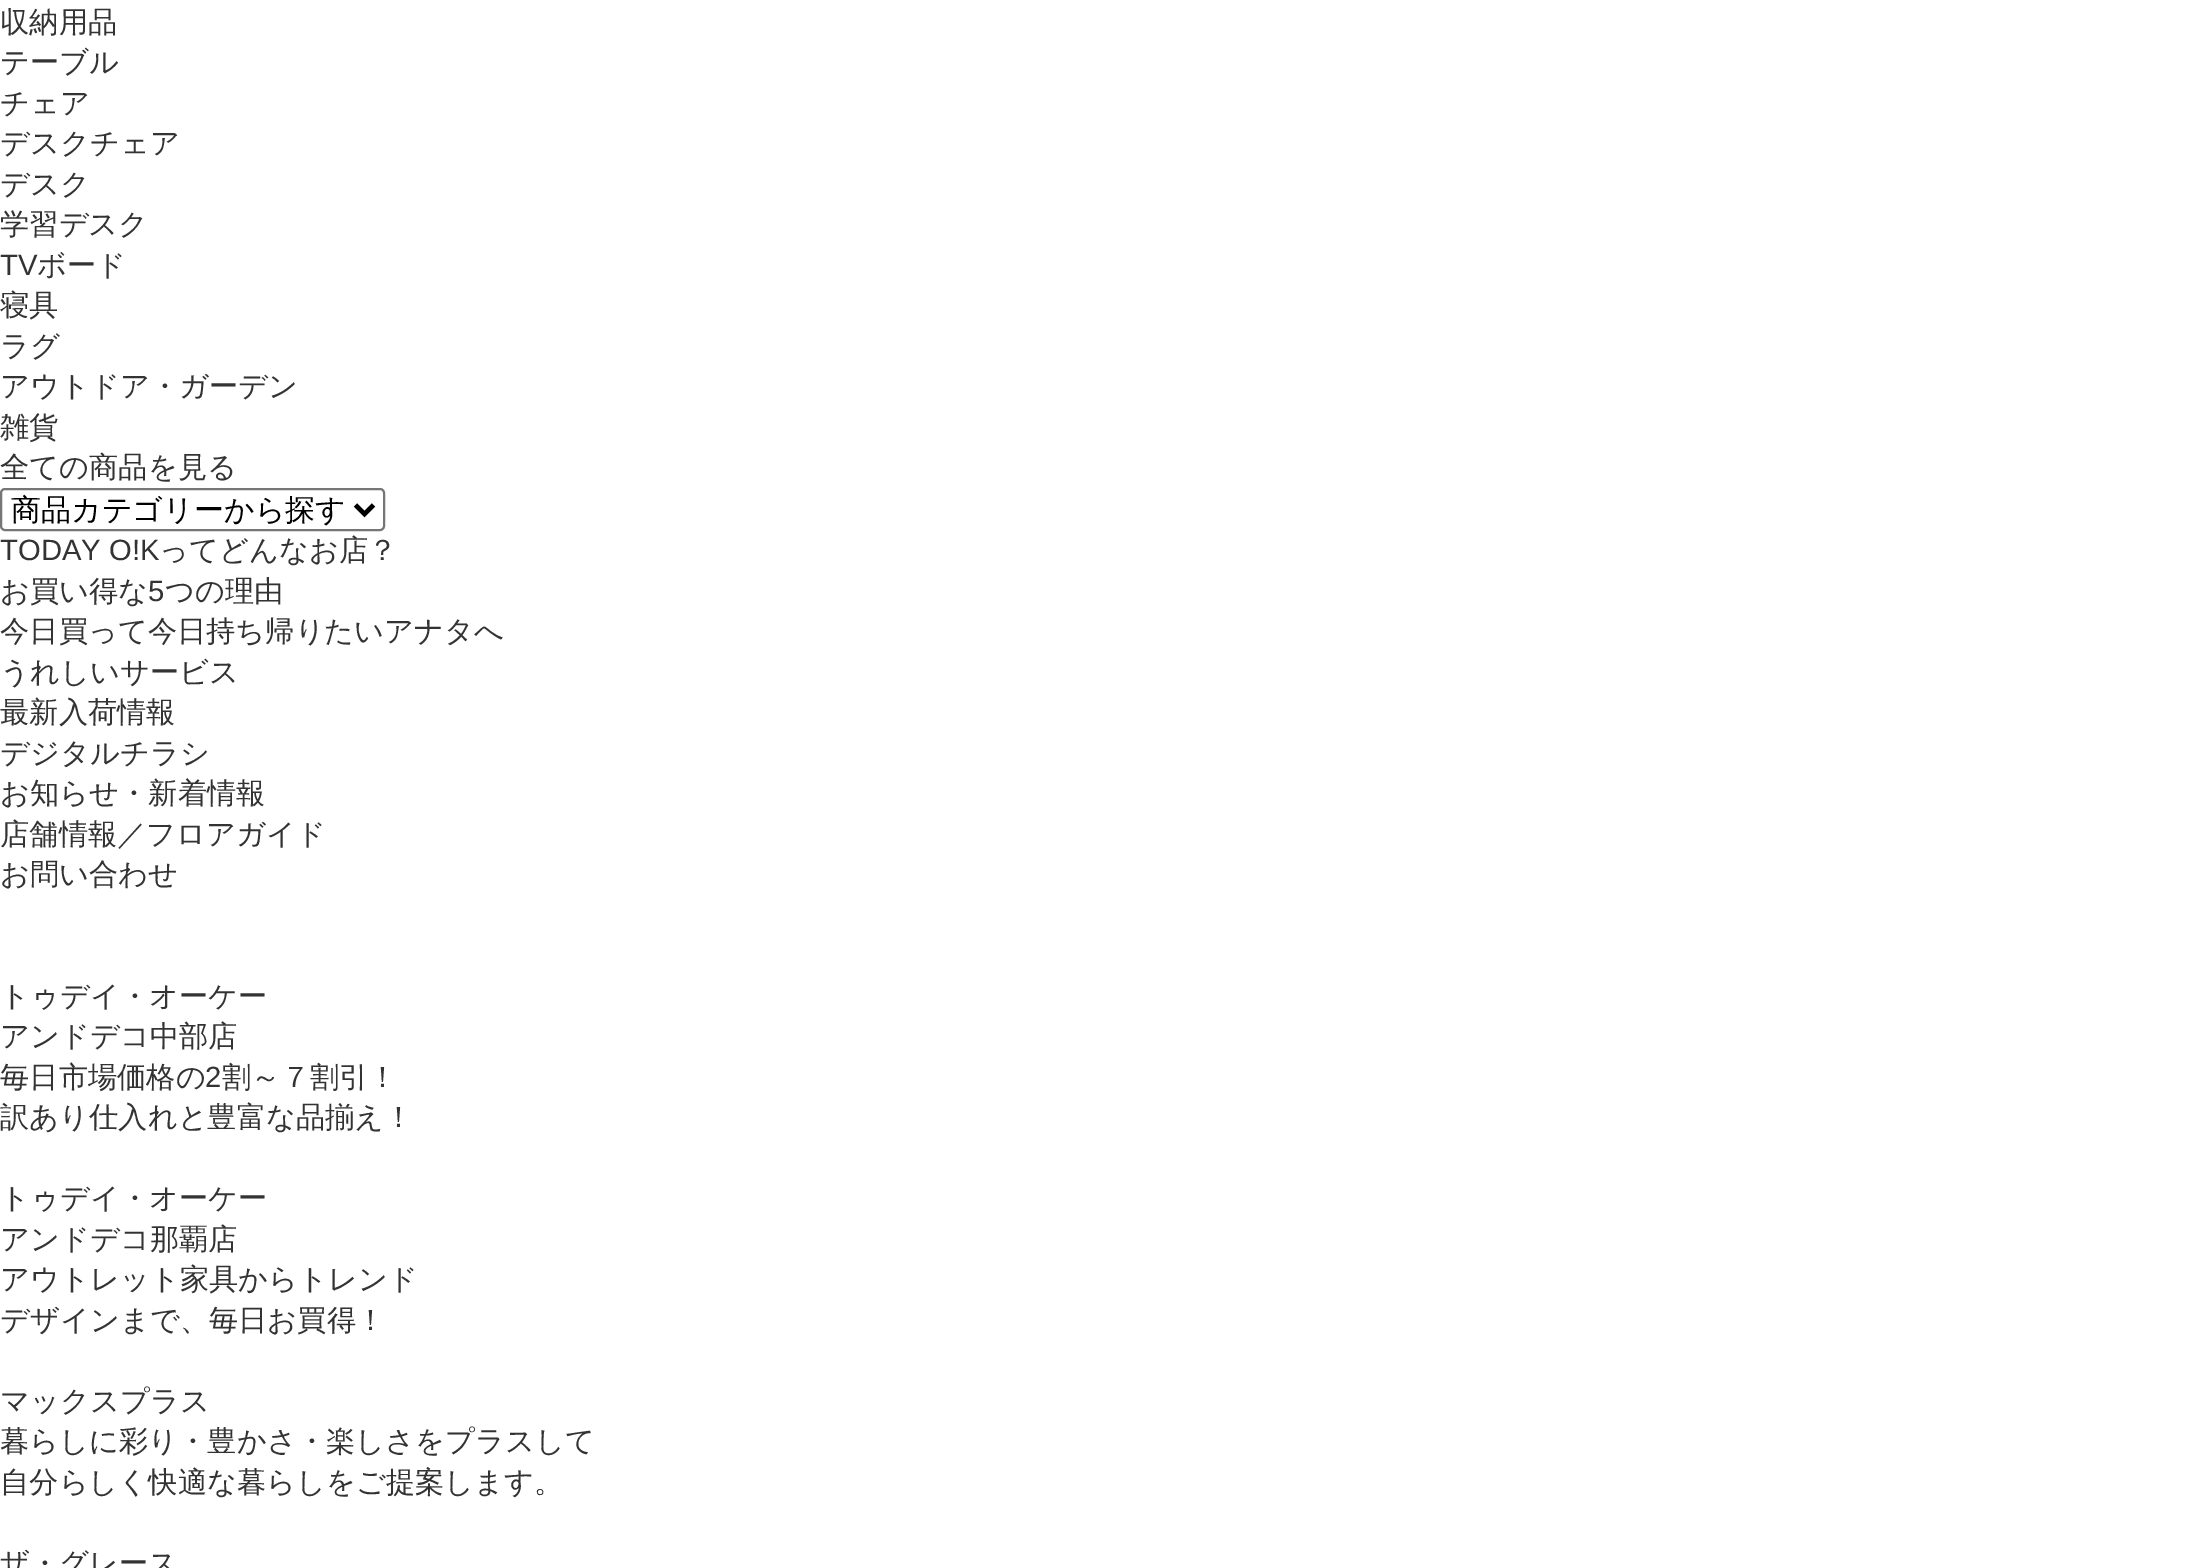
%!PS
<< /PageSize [2187 1568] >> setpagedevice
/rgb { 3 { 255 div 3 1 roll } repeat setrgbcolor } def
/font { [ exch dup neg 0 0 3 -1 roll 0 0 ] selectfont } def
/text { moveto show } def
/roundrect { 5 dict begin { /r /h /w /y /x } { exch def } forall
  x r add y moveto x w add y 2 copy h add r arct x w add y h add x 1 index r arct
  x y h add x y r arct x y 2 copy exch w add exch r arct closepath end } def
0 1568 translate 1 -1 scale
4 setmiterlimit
255 255 255 rgb
0 0 2187 1568 rectfill
118 118 118 rgb
2 setlinewidth
1 489 383 41 4 roundrect stroke
0 0 0 rgb
4.5 setlinewidth
355.5 505 moveto 9 9 rlineto 9 -9 rlineto stroke
/WenQuanYiZenHei-Medium 29.25 font
51 51 51 rgb
(収納用品) 0 32 text
(テーブル) 0 72 text
(チェア) 0 113 text
(デスクチェア) 0 153 text
(デスク) 0 194 text
(学習デスク) 0 234 text
/LiberationSans-Regular 29.25 font
(TV) 0 275 text
/WenQuanYiZenHei-Medium 29.25 font
(ボード) 37 275 text
(寝具) 0 315 text
(ラグ) 0 356 text
(アウトドア・ガーデン) 0 396 text
(雑貨) 0 437 text
(全ての商品を見る) 0 477 text
/WenQuanYiZenHei-Medium 30 font
0 0 0 rgb
(商品カテゴリーから探す) 11 520 text
/LiberationSans-Regular 29.25 font
51 51 51 rgb
(TODAY O!K) 0 560 text
/WenQuanYiZenHei-Medium 29.25 font
(ってどんなお店？) 159 560 text
(お買い得な) 0 601 text
/LiberationSans-Regular 29.25 font
(5) 148 601 text
/WenQuanYiZenHei-Medium 29.25 font
(つの理由) 165 601 text
(今日買って今日持ち帰りたいアナタへ) 0 641 text
(うれしいサービス) 0 682 text
(最新入荷情報) 0 722 text
(デジタルチラシ) 0 763 text
(お知らせ・新着情報) 0 803 text
(店舗情報／フロアガイド) 0 844 text
(お問い合わせ) 0 884 text
(トゥデイ・オーケー) 0 1006 text
(アンドデコ中部店) 0 1046 text
(毎日市場価格の) 0 1087 text
/LiberationSans-Regular 29.25 font
(2) 205 1087 text
/WenQuanYiZenHei-Medium 29.25 font
(割～７割引！) 222 1087 text
(訳あり仕入れと豊富な品揃え！) 0 1127 text
(トゥデイ・オーケー) 0 1208 text
(アンドデコ那覇店) 0 1249 text
(アウトレット家具からトレンド) 0 1289 text
(デザインまで、毎日お買得！) 0 1330 text
(マックスプラス) 0 1411 text
(暮らしに彩り・豊かさ・楽しさをプラスして) 0 1451 text
(自分らしく快適な暮らしをご提案します。) 0 1492 text
(ザ・グレース) 0 1573 text
showpage
